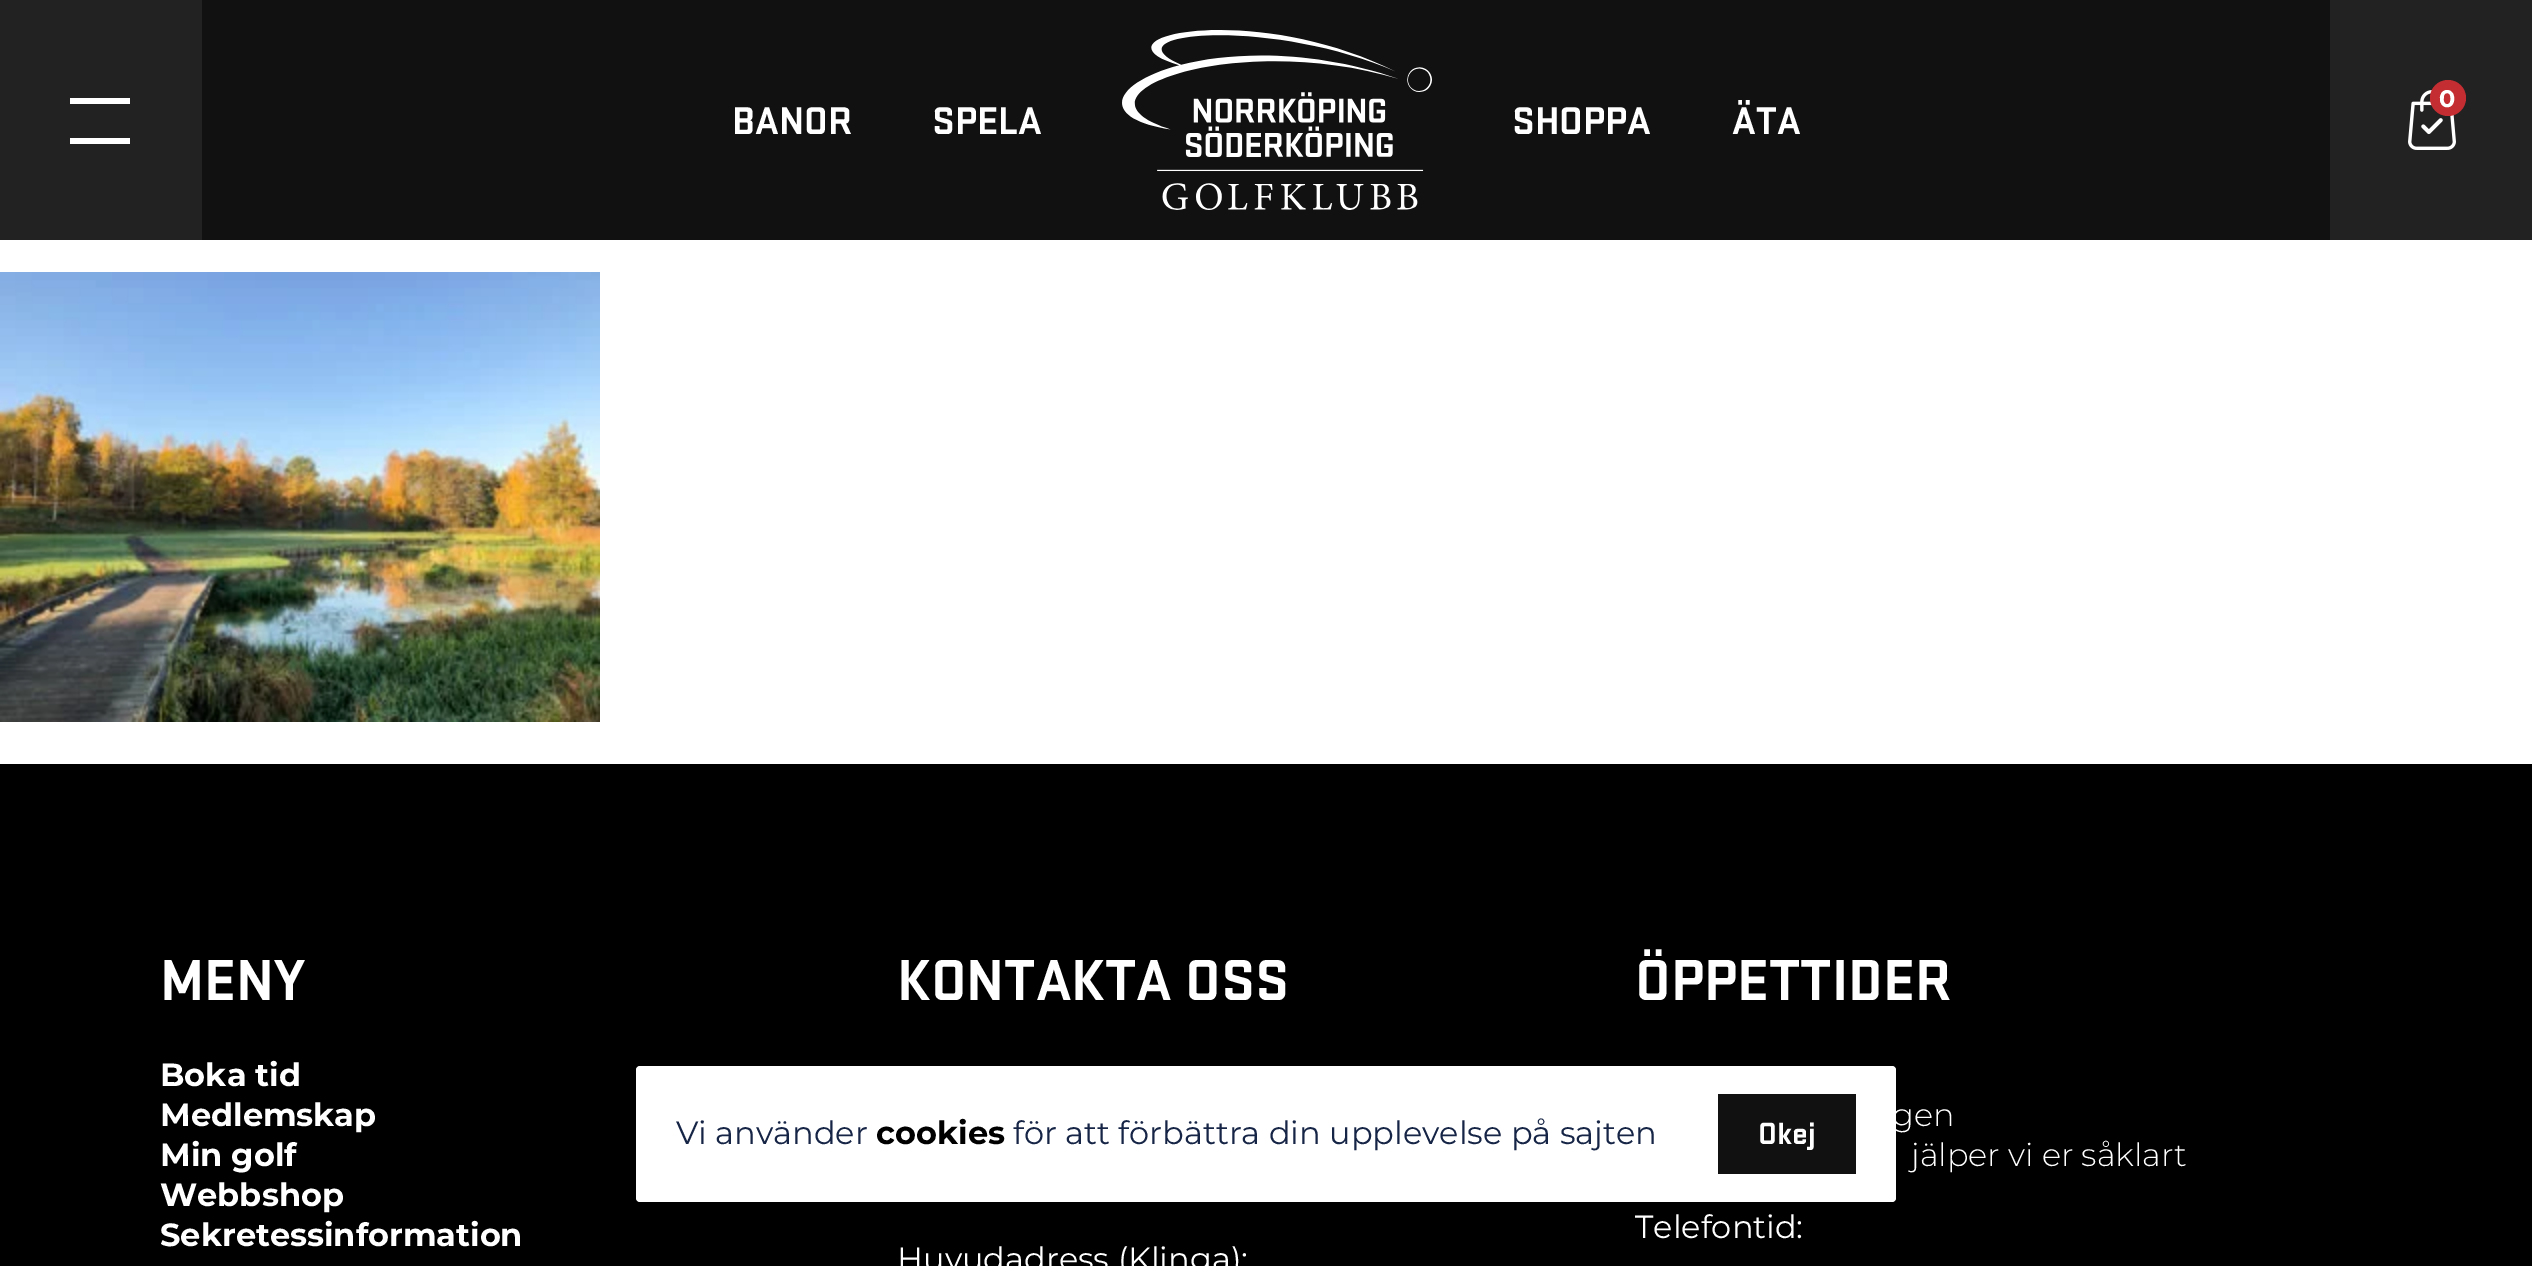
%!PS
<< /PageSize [2532 1266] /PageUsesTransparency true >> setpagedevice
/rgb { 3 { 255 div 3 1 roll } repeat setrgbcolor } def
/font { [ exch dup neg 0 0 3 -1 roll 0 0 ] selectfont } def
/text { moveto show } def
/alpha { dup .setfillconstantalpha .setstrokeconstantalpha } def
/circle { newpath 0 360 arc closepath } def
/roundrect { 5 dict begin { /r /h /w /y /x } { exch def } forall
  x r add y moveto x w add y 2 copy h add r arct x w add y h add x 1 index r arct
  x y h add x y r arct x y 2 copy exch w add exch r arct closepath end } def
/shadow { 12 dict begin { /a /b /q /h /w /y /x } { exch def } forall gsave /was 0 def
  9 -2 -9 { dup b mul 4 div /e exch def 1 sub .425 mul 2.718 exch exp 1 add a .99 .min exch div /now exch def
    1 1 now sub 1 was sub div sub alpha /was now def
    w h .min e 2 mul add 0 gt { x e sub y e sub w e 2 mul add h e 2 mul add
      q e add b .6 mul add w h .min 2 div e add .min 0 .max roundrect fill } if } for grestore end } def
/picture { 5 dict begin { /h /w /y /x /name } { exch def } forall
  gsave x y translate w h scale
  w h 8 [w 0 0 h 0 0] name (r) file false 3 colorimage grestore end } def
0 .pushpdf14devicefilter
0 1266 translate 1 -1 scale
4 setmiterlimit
255 255 255 rgb
0 0 2532 1266 rectfill
17 17 17 rgb
202 0 2128 240 rectfill
34 34 34 rgb
0 0 202 240 rectfill
255 255 255 rgb
70 98 60 6 rectfill
70 138 60 6 rectfill
(img_01.rgb) 1122 30 310 180 picture
34 34 34 rgb
2330 0 202 240 rectfill
(img_02.rgb) 2408 90 48 60 picture
196 45 50 rgb
2448 98 18 circle fill
(img_03.rgb) 0 272 600 450 picture
0 0 0 rgb
0 764 2532 502 rectfill
636 1090 1260 136 4 24 0.2 shadow
255 255 255 rgb
636 1066 1260 136 4 roundrect fill
17 17 17 rgb
1718 1094 138 80 rectfill
/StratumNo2-Bold 40 font
255 255 255 rgb
(BANOR) 732 134 text
(SPELA) 932 134 text
(SHOPPA) 1512 134 text
(ÄTA) 1732 134 text
/Montserrat-Bold 24 font
(0) 2439 107 text
/StratumNo2-Bold 60 font
(MENY) 160 1000 text
/Montserrat-Bold 32 font
(Boka tid) 160 1086 text
(Medlemskap) 160 1126 text
(Min golf) 160 1166 text
(Webbshop) 160 1206 text
(Sekretessinformation) 160 1246 text
/StratumNo2-Bold 60 font
(KONTAKTA OSS) 897 1000 text
/Montserrat-Regular 32 font
(Huvudadress \(Klinga\):) 897 1270 text
/StratumNo2-Bold 60 font
(ÖPPETTIDER) 1635 1000 text
/Montserrat-Light 32 font
(gen) 1892 1126 text
(jälper vi er såklart) 1911 1166 text
/Montserrat-Regular 32 font
(Telefontid:) 1635 1238 text
22 37 70 rgb
(Vi använder) 676 1144 text
/Montserrat-Bold 32 font
0 0 0 rgb
(cookies) 876 1144 text
/Montserrat-Regular 32 font
22 37 70 rgb
(för att förbättra din upplevelse på sajten) 1013 1144 text
/StratumNo2-Bold 32 font
255 255 255 rgb
(Okej) 1758 1144 text
.poppdf14devicefilter showpage
